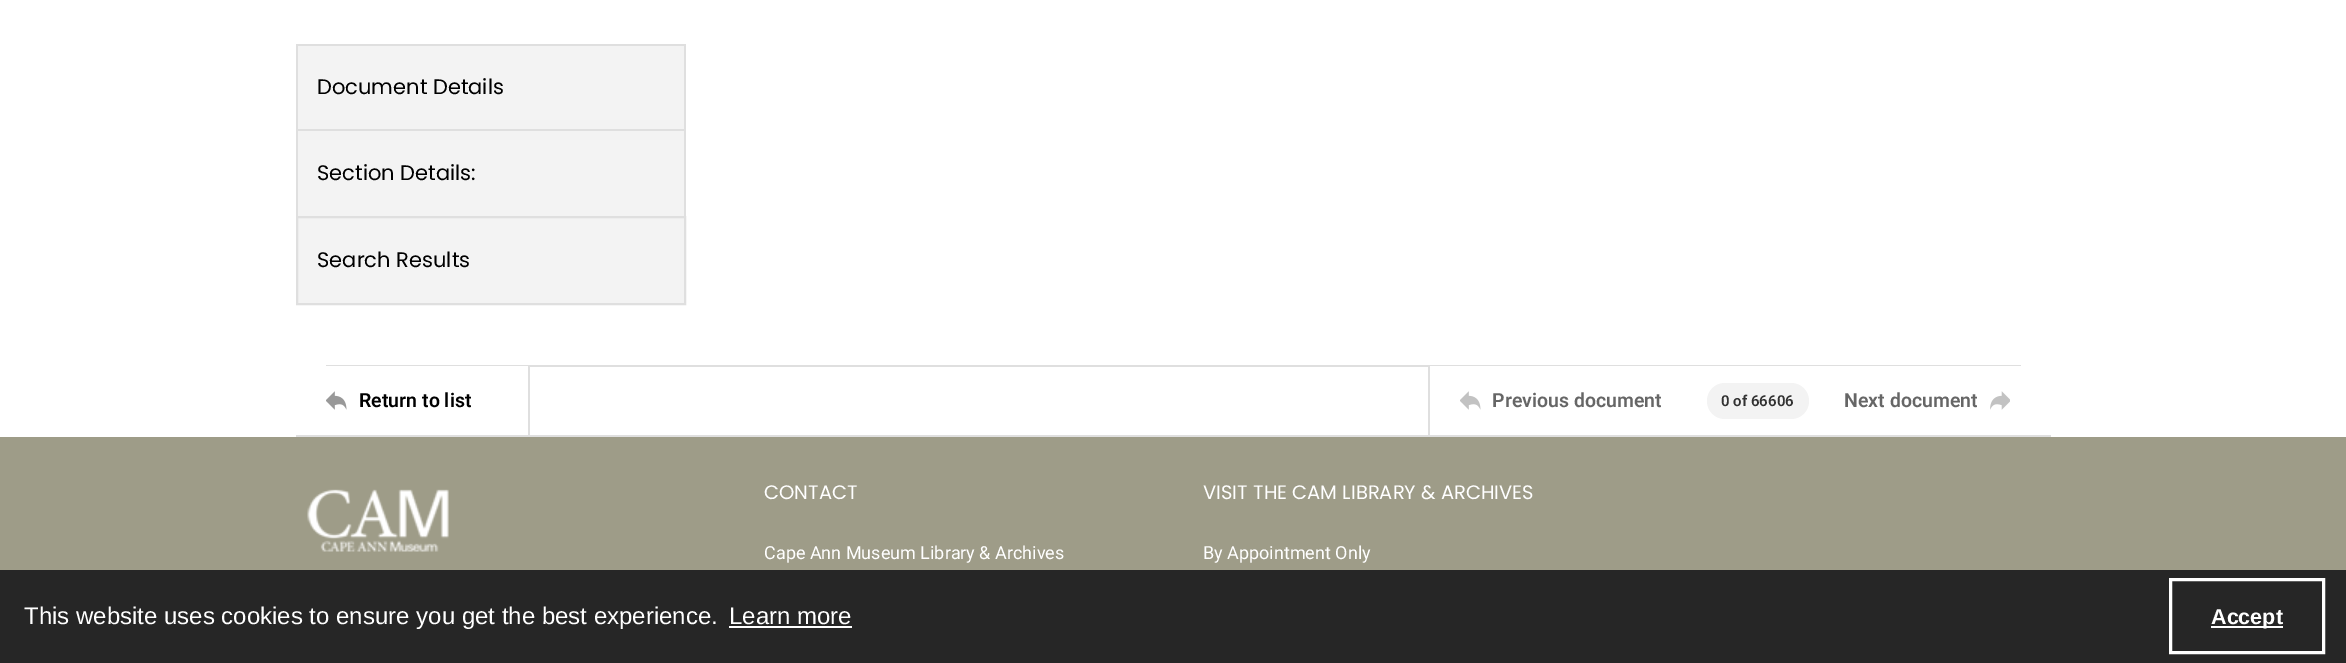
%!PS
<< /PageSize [2346 663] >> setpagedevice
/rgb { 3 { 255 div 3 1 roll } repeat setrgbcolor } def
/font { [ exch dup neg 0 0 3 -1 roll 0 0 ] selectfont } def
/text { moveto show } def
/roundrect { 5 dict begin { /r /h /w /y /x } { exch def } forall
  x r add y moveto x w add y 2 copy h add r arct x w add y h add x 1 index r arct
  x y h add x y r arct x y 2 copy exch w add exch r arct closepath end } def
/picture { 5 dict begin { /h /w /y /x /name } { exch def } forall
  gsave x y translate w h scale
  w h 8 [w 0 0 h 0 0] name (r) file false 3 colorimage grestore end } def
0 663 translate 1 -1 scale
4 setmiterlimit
255 255 255 rgb
0 0 2346 663 rectfill
243 243 243 rgb
298 46 386 83 rectfill
223 223 223 rgb
296 44 390 2 rectfill
684 44 2 85 rectfill
296 44 2 85 rectfill
243 243 243 rgb
298 131 386 85 rectfill
223 223 223 rgb
296 129 390 2 rectfill
684 129 2 87 rectfill
296 129 2 87 rectfill
243 243 243 rgb
297 217 moveto 388 0 rlineto 0 87 rlineto -388 0 rlineto closepath gsave fill grestore
223 223 223 rgb
2 setlinewidth
stroke
296 435 1755 2 rectfill
326 365 1695 2 rectfill
255 255 255 rgb
326 366 202 1 rectfill
(img_01.rgb) 326 391 21 19 picture
223 223 223 rgb
528 366 2 69 rectfill
255 255 255 rgb
1430 366 591 1 rectfill
223 223 223 rgb
1428 366 2 69 rectfill
(img_02.rgb) 1460 391 21 19 picture
243 243 243 rgb
1707 383 102 36 18 roundrect fill
(img_03.rgb) 1990 391 20 19 picture
158 156 136 rgb
0 437 2346 133 rectfill
(img_04.rgb) 307 489 142 63 picture
38 38 38 rgb
0 570 2346 93 rectfill
255 255 255 rgb
729 626 123 2 rectfill
3 setlinewidth
2170.5 579.5 153 73 rectstroke
2211 626 72 2 rectfill
/Poppins-Regular 21 font
0 0 0 rgb
(Document Details) 317 94 text
(Section Details:) 317 180 text
(Search Results) 317 267 text
/Roboto-SemiBold 19.5 font
(Return to list) 359 407 text
102 102 102 rgb
(Previous document) 1492 407 text
/Roboto-SemiBold 15 font
50 50 50 rgb
(0 of 66606) 1721 406 text
/Roboto-SemiBold 19.5 font
102 102 102 rgb
(Next document) 1844 407 text
/Poppins-Regular 19.5 font
255 255 255 rgb
(CONTACT) 764 499 text
/Roboto-Regular 18 font
(Cape Ann Museum Library & Archives) 764 559 text
/Poppins-Regular 19.5 font
(VISIT THE CAM LIBRARY & ARCHIVES) 1203 499 text
/Roboto-Regular 18 font
(By Appointment Only) 1203 559 text
/LiberationSans-Regular 24 font
(This website uses cookies to ensure you get the best experience.) 24 624 text
(Learn more) 729 624 text
/LiberationSans-Bold 21.5 font
(Accept) 2211 624 text
showpage
